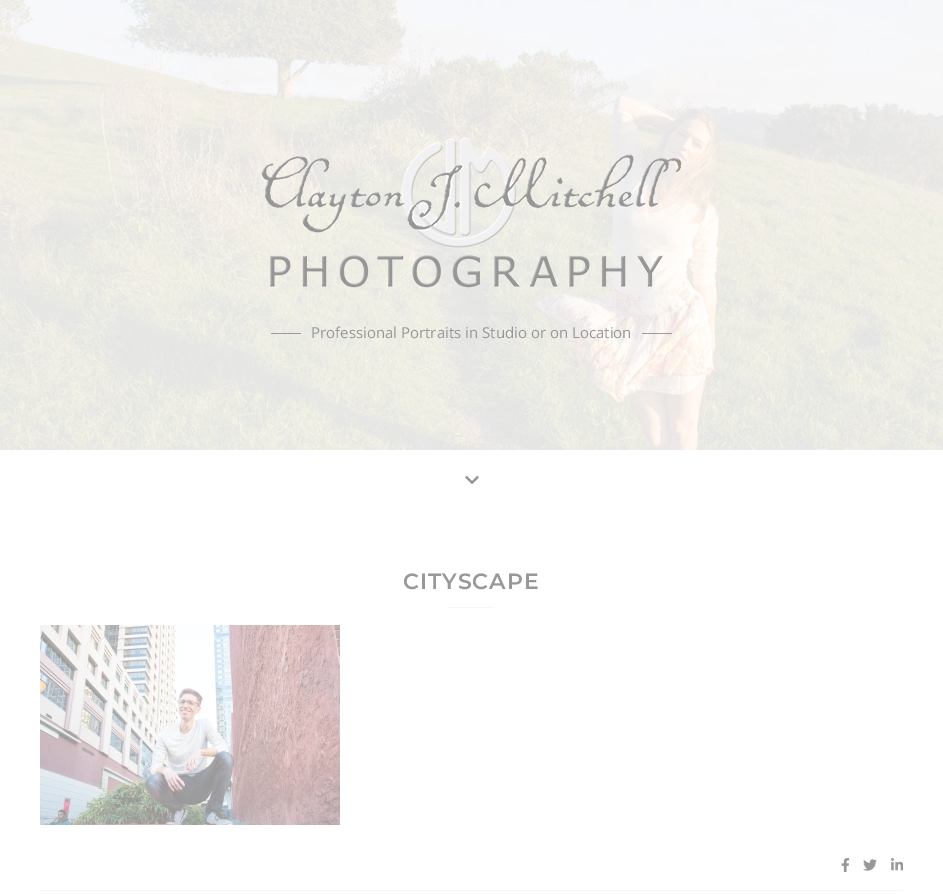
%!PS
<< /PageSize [943 894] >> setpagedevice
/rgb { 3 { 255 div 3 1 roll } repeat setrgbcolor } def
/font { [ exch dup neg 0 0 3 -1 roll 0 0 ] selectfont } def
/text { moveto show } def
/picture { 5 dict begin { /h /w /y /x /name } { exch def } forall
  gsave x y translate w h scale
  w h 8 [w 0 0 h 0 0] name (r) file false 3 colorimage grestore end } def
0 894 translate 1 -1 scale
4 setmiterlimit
255 255 255 rgb
0 0 943 894 rectfill
(img_01.rgb) 0 0 943 450 picture
(img_02.rgb) 261 137 421 151 picture
157 157 157 rgb
271 333 30 1 rectfill
642 333 30 1 rectfill
(img_03.rgb) 465 475 14 10 picture
246 246 246 rgb
449 607 45 1 rectfill
(img_04.rgb) 40 625 300 200 picture
40 890 863 1 rectfill
(img_05.rgb) 841 858 9 14 picture
(img_06.rgb) 863 859 14 12 picture
(img_07.rgb) 891 858 12 13 picture
/OpenSans-Regular 15 font
152 152 152 rgb
(Professional Portraits in Studio or on Location) 311 338 text
/Montserrat-SemiBold 22 font
403 589 moveto 1 0 (CITYSCAPE) ashow
showpage
